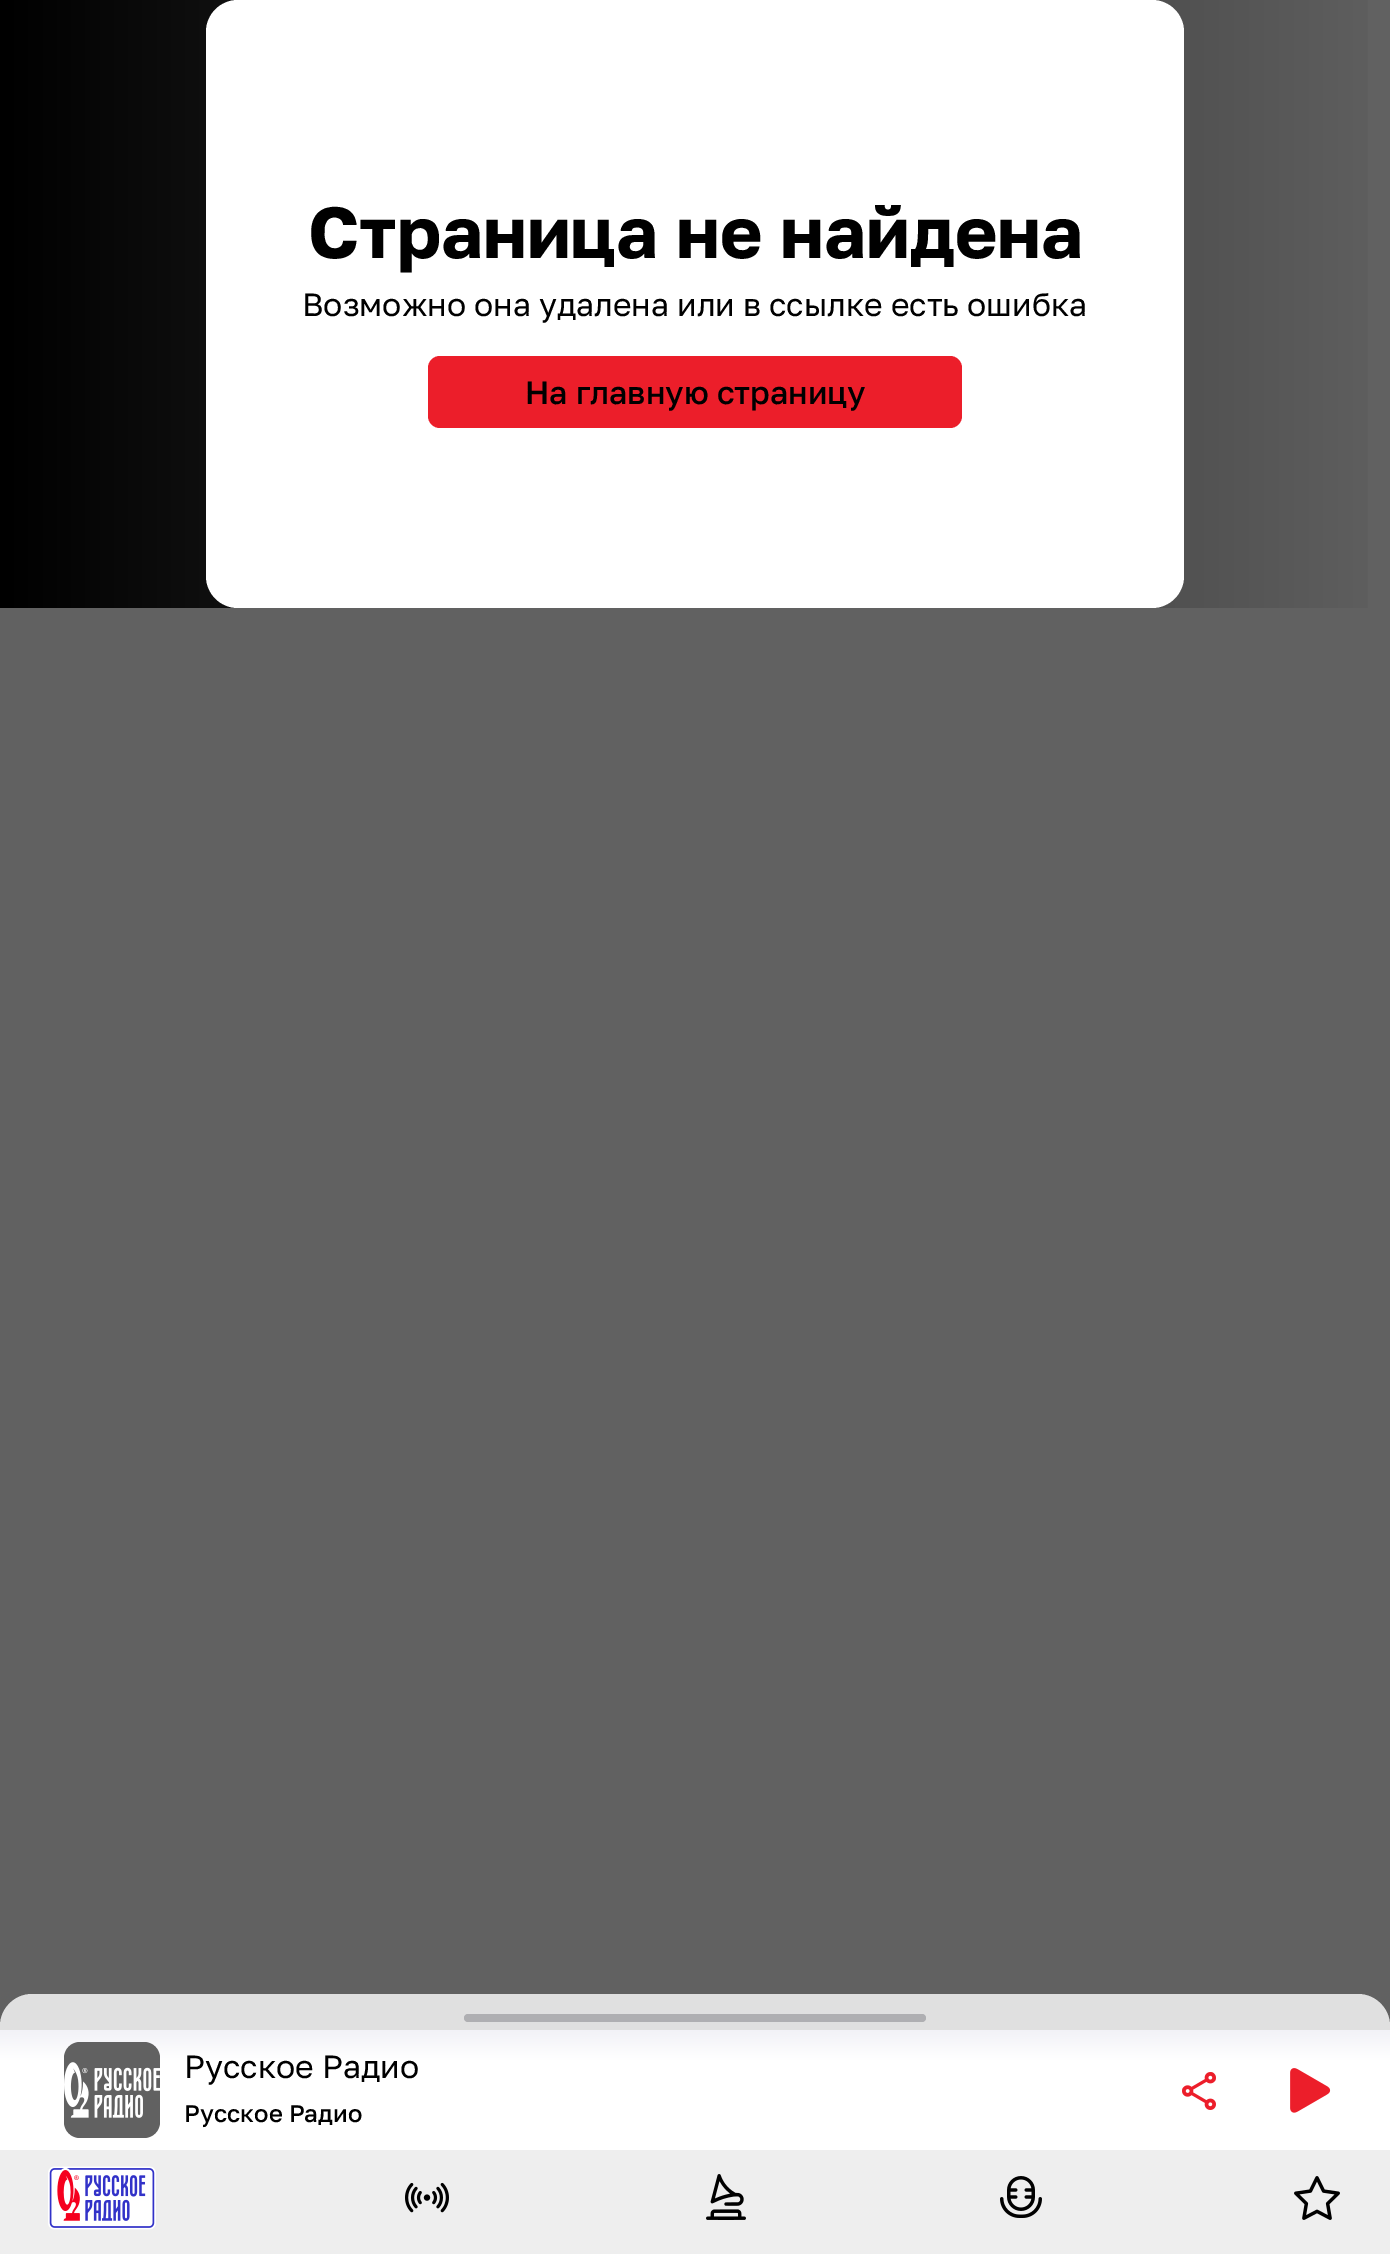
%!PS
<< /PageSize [1390 2254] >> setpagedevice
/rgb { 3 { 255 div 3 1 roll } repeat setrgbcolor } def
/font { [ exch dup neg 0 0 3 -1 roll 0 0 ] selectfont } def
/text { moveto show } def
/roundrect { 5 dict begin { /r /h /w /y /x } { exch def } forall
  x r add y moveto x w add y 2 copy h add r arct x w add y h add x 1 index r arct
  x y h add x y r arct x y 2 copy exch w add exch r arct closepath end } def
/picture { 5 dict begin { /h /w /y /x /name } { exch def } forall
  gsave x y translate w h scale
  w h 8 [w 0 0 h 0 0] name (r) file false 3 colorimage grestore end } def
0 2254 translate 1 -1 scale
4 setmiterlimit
97 97 97 rgb
0 0 1390 2254 rectfill
gsave 0 0 moveto 1368 0 rlineto 0 608 rlineto -1368 0 rlineto closepath clip newpath
<< /ShadingType 2 /ColorSpace /DeviceRGB /Coords [0 304 1390 304] /Extend [true true] /Function << /FunctionType 2 /Domain [0 1] /C0 [0 0 0] /C1 [0.376 0.376 0.376] /N 1 >> >> shfill grestore
255 255 255 rgb
206 0 978 608 32 roundrect fill
236 30 42 rgb
428 356 534 72 12 roundrect fill
224 224 224 rgb
32 1994 moveto 1326 0 rlineto 17.5 0 32 14.5 32 32 rcurveto 0 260 rlineto -1390 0 rlineto 0 -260 rlineto 0 -17.5 14.5 -32 32 -32 rcurveto closepath fill
238 238 238 rgb
0 2150 1390 104 rectfill
(img_01.rgb) 48 2166 108 64 picture
(img_02.rgb) 405 2182 44 31 picture
(img_03.rgb) 706 2174 40 46 picture
(img_04.rgb) 1000 2176 42 42 picture
(img_05.rgb) 1294 2176 46 44 picture
175 175 178 rgb
464 2014 462 8 4 roundrect fill
gsave 0 2030 moveto 1390 0 rlineto 0 120 rlineto -1390 0 rlineto closepath clip newpath
<< /ShadingType 2 /ColorSpace /DeviceRGB /Coords [695 2150 695 2030] /Extend [true true] /Function << /FunctionType 3 /Domain [0 1] /Functions [<< /FunctionType 2 /Domain [0 1] /C0 [1 1 1] /C1 [1 1 1] /N 1 >> << /FunctionType 2 /Domain [0 1] /C0 [1 1 1] /C1 [0.949 0.949 0.969] /N 1 >>] /Bounds [0.75] /Encode [0 1 0 1] >> >> shfill grestore
97 97 97 rgb
64 2042 96 96 16 roundrect fill
(img_06.rgb) 64 2062 96 56 picture
(img_07.rgb) 1182 2072 34 38 picture
(img_08.rgb) 1290 2068 41 45 picture
/GolosText-Bold 72 font
0 0 0 rgb
(Страница не найдена) 308 258 text
/GolosText-Regular 32 font
(Возможно она удалена или в ссылке есть ошибка) 302 316 text
/GolosText-Medium 32 font
(На главную страницу) 525 404 text
/GolosText-Regular 32 font
(Русское Радио) 184 2078 text
/GolosText-Medium 24 font
(Русское Радио) 184 2122 text
showpage
